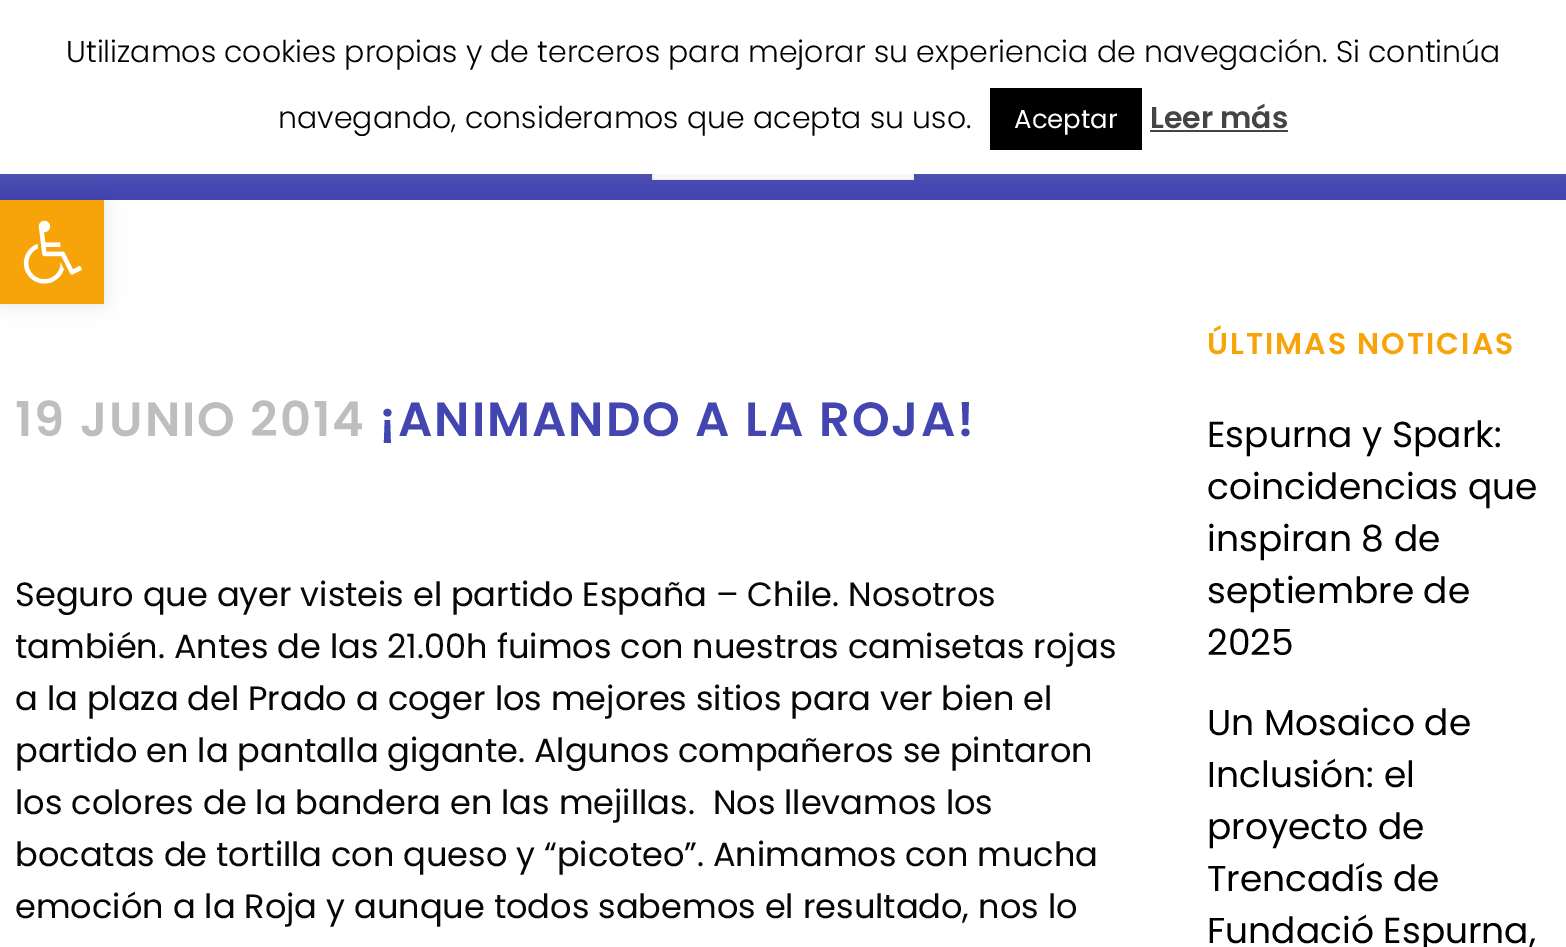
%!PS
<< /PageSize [1566 947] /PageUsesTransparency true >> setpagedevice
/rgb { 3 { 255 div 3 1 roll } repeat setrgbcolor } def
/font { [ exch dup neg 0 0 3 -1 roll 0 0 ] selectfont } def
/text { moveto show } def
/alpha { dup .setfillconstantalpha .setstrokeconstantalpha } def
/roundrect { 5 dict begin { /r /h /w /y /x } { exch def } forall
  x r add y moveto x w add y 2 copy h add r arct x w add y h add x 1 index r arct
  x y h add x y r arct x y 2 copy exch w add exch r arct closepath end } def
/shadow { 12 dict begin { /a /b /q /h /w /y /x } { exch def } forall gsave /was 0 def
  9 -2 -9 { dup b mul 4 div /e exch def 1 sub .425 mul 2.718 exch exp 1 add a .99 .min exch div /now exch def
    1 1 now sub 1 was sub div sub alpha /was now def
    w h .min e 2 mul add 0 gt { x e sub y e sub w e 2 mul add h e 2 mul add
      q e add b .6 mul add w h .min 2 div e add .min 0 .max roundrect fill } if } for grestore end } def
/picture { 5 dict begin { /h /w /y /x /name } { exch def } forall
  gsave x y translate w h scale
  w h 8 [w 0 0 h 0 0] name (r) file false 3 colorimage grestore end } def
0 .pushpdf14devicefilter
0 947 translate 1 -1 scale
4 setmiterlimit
255 255 255 rgb
0 0 1566 947 rectfill
67 70 177 rgb
0 174 1566 26 rectfill
0 0 0 rgb
0 200 104 104 0 10 0.1 shadow
247 164 10 rgb
0 200 104 104 rectfill
(img_02.rgb) 652 174 262 6 picture
172 171 171 rgb
0 -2 1566 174 0 10 0.3 shadow
255 255 255 rgb
0 0 1566 174 rectfill
0 0 0 rgb
990 88 152 62 rectfill
68 68 68 rgb
1150 130 138 2 rectfill
(img_01.rgb) 23 220 59 64 picture
/Poppins-Light 30 font
0 0 0 rgb
(Utilizamos cookies propias y de terceros para mejorar su experiencia de navegación. Si continúa) 66 62 text
(navegando, consideramos que acepta su uso.) 278 128 text
/Poppins-Regular 26 font
255 255 255 rgb
(Aceptar) 1014 128 text
/Poppins-SemiBold 30 font
68 68 68 rgb
(Leer más) 1150 128 text
/Poppins-SemiBold 48 font
190 190 190 rgb
15 436 moveto 2 0 (19 JUNIO 2014) ashow
67 70 177 rgb
379 436 moveto 2 0 (¡ANIMANDO A LA ROJA!) ashow
/Poppins-Regular 33.6 font
8 7 8 rgb
15 606 moveto -0.1 0 32 (Seguro que ayer visteis el partido España – Chile. Nosotros) widthshow
15 658 moveto -0.1 0 32 (también. Antes de las 21.00h fuimos con nuestras camisetas rojas) widthshow
(a la plaza del Prado a coger los mejores sitios para ver bien el) 15 710 text
15 762 moveto -0.25 0 32 (partido en la pantalla gigante. Algunos compañeros se pintaron) widthshow
(los colores de la bandera en las mejillas.  Nos llevamos los) 15 814 text
15 866 moveto -0.1 0 32 (bocatas de tortilla con queso y “picoteo”. Animamos con mucha) widthshow
(emoción a la Roja y aunque todos sabemos el resultado, nos lo) 15 918 text
/Poppins-SemiBold 30 font
247 164 10 rgb
1207 354 moveto 2 0 (ÚLTIMAS NOTICIAS) ashow
/Poppins-Regular 36 font
0 0 0 rgb
(Espurna y Spark:) 1207 447 text
(coincidencias que) 1207 499 text
(inspiran 8 de) 1207 551 text
(septiembre de) 1207 603 text
(2025) 1207 655 text
(Un Mosaico de) 1207 735 text
(Inclusión: el) 1207 787 text
(proyecto de) 1207 839 text
(Trencadís de) 1207 891 text
(Fundació Espurna,) 1207 943 text
.poppdf14devicefilter showpage
